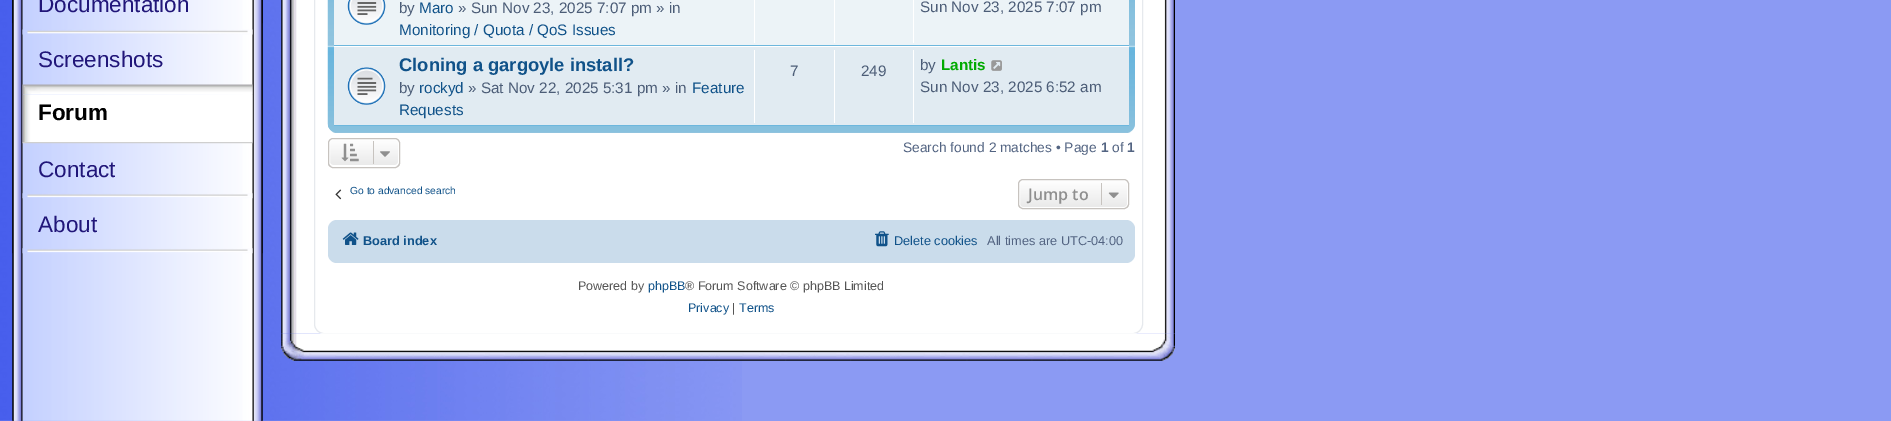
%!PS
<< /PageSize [1891 421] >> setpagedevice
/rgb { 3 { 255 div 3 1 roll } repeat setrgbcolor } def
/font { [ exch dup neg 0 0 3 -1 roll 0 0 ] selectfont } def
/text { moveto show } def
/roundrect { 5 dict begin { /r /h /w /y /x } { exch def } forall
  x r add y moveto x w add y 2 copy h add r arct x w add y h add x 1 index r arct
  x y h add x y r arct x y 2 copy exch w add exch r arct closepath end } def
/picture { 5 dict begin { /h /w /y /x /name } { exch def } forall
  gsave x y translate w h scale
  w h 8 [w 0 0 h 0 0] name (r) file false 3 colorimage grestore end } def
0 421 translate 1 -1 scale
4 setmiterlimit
139 154 243 rgb
0 0 1891 421 rectfill
(img_01.rgb) 0 0 742 421 picture
(img_02.rgb) 12 0 251 24 picture
(img_03.rgb) 12 0 251 421 picture
(img_04.rgb) 12 0 251 421 picture
(img_05.rgb) 12 0 251 254 picture
(img_06.rgb) 22 29 231 6 picture
(img_07.rgb) 22 84 231 11 picture
(img_08.rgb) 22 94 231 48 picture
(img_09.rgb) 22 142 231 2 picture
(img_10.rgb) 22 193 231 6 picture
(img_11.rgb) 22 248 231 6 picture
(img_12.rgb) 281 0 894 334 picture
255 255 255 rgb
314.5 -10.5 828 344 9.5 roundrect gsave fill grestore
230 233 237 rgb
stroke
144 195 222 rgb
328 -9 807 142 9 roundrect fill
(img_13.rgb) 327 0 808 132 picture
236 243 247 rgb
334 0 795 45 rectfill
109 183 221 rgb
334 45 795 1 rectfill
(img_14.rgb) 347 0 39 25 picture
255 255 255 rgb
754 0 1 43 rectfill
834 0 1 43 rectfill
913 0 1 43 rectfill
225 235 242 rgb
334 47 795 78 rectfill
255 255 255 rgb
334 46 795 1 rectfill
109 183 221 rgb
334 125 795 1 rectfill
(img_15.rgb) 347 67 39 38 picture
255 255 255 rgb
754 50 1 73 rectfill
834 50 1 73 rectfill
913 50 1 73 rectfill
(img_16.rgb) 991 60 11 11 picture
gsave
328 138 72 30 5 roundrect clip newpath
gsave 328 139 moveto 72 0 rlineto 0 27 rlineto -72 0 rlineto closepath clip newpath
<< /ShadingType 2 /ColorSpace /DeviceRGB /Coords [364 139 364 166] /Extend [true true] /Function << /FunctionType 2 /Domain [0 1] /C0 [1 1 1] /C1 [0.914 0.914 0.914] /N 1 >> >> shfill grestore
grestore
329.5 139.5 69 26 3.5 roundrect stroke
199 195 191 rgb
328.5 138.5 71 29 4.5 roundrect stroke
(img_17.rgb) 341 143 18 19 picture
373 141 1 23 rectfill
(img_18.rgb) 380 151 10 6 picture
(img_19.rgb) 335 189 7 11 picture
gsave
1018 179 111 30 5 roundrect clip newpath
gsave 1018 180 moveto 111 0 rlineto 0 28 rlineto -111 0 rlineto closepath clip newpath
<< /ShadingType 2 /ColorSpace /DeviceRGB /Coords [1073 180 1073 208] /Extend [true true] /Function << /FunctionType 2 /Domain [0 1] /C0 [1 1 1] /C1 [0.914 0.914 0.914] /N 1 >> >> shfill grestore
grestore
255 255 255 rgb
1019.5 180.5 108 27 3.5 roundrect stroke
199 195 191 rgb
1018.5 179.5 110 29 4.5 roundrect stroke
1101 183 1 22 rectfill
(img_20.rgb) 1108 192 11 6 picture
202 220 235 rgb
328 220 807 43 9 roundrect fill
(img_21.rgb) 342 232 17 13 picture
(img_22.rgb) 875 231 14 16 picture
(img_23.rgb) 281 333 894 28 picture
/LiberationSans-Regular 22.5 font
33 22 121 rgb
(Documentation) 38 12 text
(Screenshots) 38 67 text
/LiberationSans-Bold 22.5 font
0 0 0 rgb
(Forum) 38 120 text
/LiberationSans-Regular 22.5 font
33 22 121 rgb
(Contact) 38 177 text
(About) 38 232 text
/LiberationSans-Regular 15.25 font
76 93 119 rgb
(by) 399 13 text
16 82 137 rgb
(Maro) 419 13 text
76 93 119 rgb
(» Sun Nov 23, 2025 7:07 pm » in) 458 13 text
16 82 137 rgb
(Monitoring / Quota / QoS Issues) 399 35 text
76 93 119 rgb
(Sun Nov 23, 2025 7:07 pm) 920 12 text
/LiberationSans-Bold 18.4 font
16 82 137 rgb
(Cloning a gargoyle install?) 399 71 text
/LiberationSans-Regular 15.25 font
76 93 119 rgb
(by) 399 93 text
16 82 137 rgb
(rockyd) 419 93 text
76 93 119 rgb
(» Sat Nov 22, 2025 5:31 pm » in) 468 93 text
16 82 137 rgb
(Feature) 692 93 text
(Requests) 399 115 text
76 93 119 rgb
(7) 790 76 text
(249) 861 76 text
(by) 920 70 text
/LiberationSans-Bold 15.25 font
0 170 0 rgb
(Lantis) 941 70 text
/LiberationSans-Regular 15.25 font
76 93 119 rgb
(Sun Nov 23, 2025 6:52 am) 920 92 text
/LiberationSans-Regular 13.75 font
83 100 130 rgb
(Search found 2 matches • Page) 903 152 text
/LiberationSans-Bold 13.75 font
(1) 1101 152 text
/LiberationSans-Regular 13.75 font
(of) 1112 152 text
/LiberationSans-Bold 13.75 font
(1) 1127 152 text
/LiberationSans-Regular 10.25 font
16 82 137 rgb
(Go to advanced search) 350 194 text
/OpenSans-SemiBold 16 font
143 143 143 rgb
(Jump to) 1028 200 text
/LiberationSans-Bold 12.75 font
16 82 137 rgb
(Board index) 363 245 text
/LiberationSans-Regular 12.75 font
(Delete cookies) 894 245 text
83 100 130 rgb
(All times are UTC-04:00) 987 245 text
/LiberationSans-Regular 12.5 font
85 85 85 rgb
(Powered by) 578 290 text
16 82 137 rgb
(phpBB) 648 290 text
85 85 85 rgb
(® Forum Software © phpBB Limited) 685 290 text
16 82 137 rgb
(Privacy) 688 312 text
85 85 85 rgb
(|) 732 312 text
16 82 137 rgb
(Terms) 739 312 text
showpage
